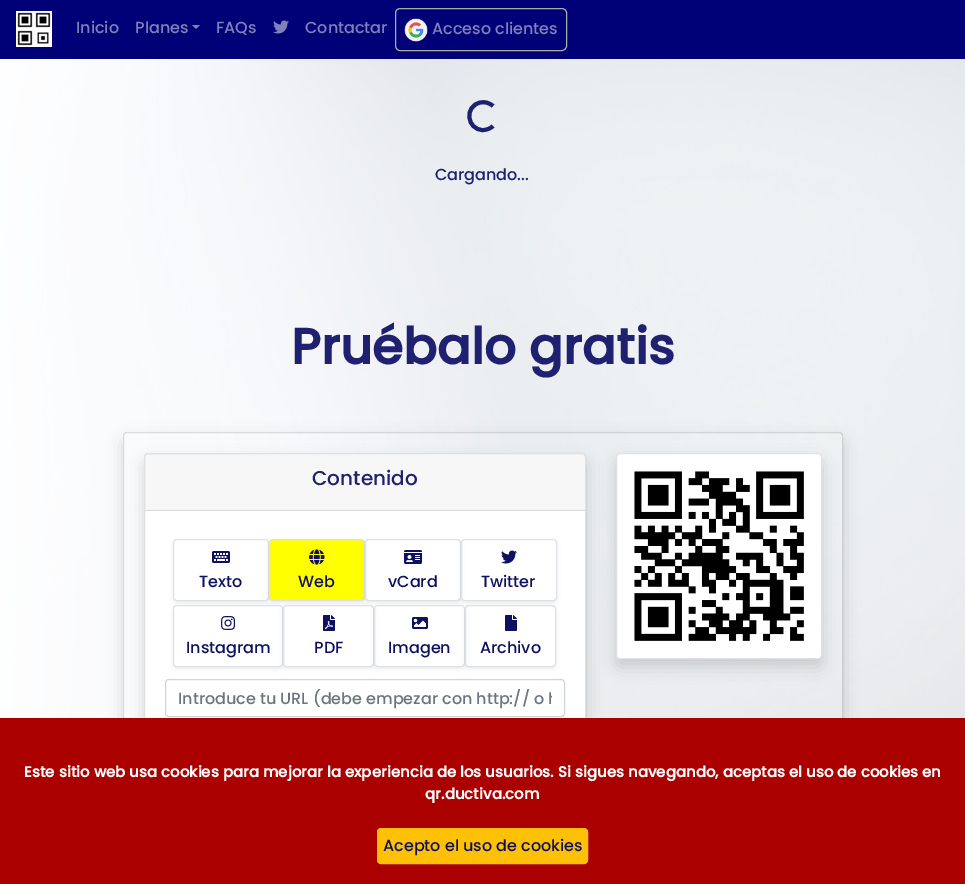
%!PS
<< /PageSize [965 884] /PageUsesTransparency true >> setpagedevice
/rgb { 3 { 255 div 3 1 roll } repeat setrgbcolor } def
/font { [ exch dup neg 0 0 3 -1 roll 0 0 ] selectfont } def
/text { moveto show } def
/alpha { dup .setfillconstantalpha .setstrokeconstantalpha } def
/roundrect { 5 dict begin { /r /h /w /y /x } { exch def } forall
  x r add y moveto x w add y 2 copy h add r arct x w add y h add x 1 index r arct
  x y h add x y r arct x y 2 copy exch w add exch r arct closepath end } def
/shadow { 12 dict begin { /a /b /q /h /w /y /x } { exch def } forall gsave /was 0 def
  9 -2 -9 { dup b mul 4 div /e exch def 1 sub .425 mul 2.718 exch exp 1 add a .99 .min exch div /now exch def
    1 1 now sub 1 was sub div sub alpha /was now def
    w h .min e 2 mul add 0 gt { x e sub y e sub w e 2 mul add h e 2 mul add
      q e add b .6 mul add w h .min 2 div e add .min 0 .max roundrect fill } if } for grestore end } def
/picture { 5 dict begin { /h /w /y /x /name } { exch def } forall
  gsave x y translate w h scale
  w h 8 [w 0 0 h 0 0] name (r) file false 3 colorimage grestore end } def
0 .pushpdf14devicefilter
0 884 translate 1 -1 scale
4 setmiterlimit
255 255 255 rgb
0 0 965 884 rectfill
(img_01.rgb) 0 59 965 659 picture
0 0 119 rgb
0 0 965 59 rectfill
(img_02.rgb) 16 11 36 36 picture
128 128 187 rgb
192 25 moveto 8 0 rlineto -4 4 rlineto closepath fill
(img_03.rgb) 273 20 16 14 picture
170 170 170 rgb
395.5 8.5 171 42 4.5 roundrect stroke
(img_04.rgb) 404 18 24 24 picture
32 32 112 rgb
4 setlinewidth
493 126 moveto -2.5 2.5 -6.5 4 -10 4 rcurveto -16.5 0 -19 -24.5 -2.5 -27.5 rcurveto 4.5 -1 9 0.5 12.5 3.5 rcurveto stroke
gsave
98 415 moveto 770 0 rlineto 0 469 rlineto -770 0 rlineto closepath 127 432 moveto 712 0 rlineto 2 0 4 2 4 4 rcurveto 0 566 rlineto 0 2 -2 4 -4 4 rcurveto -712 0 rlineto -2 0 -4 -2 -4 -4 rcurveto 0 -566 rlineto 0 -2 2 -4 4 -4 rcurveto closepath eoclip newpath
0 0 0 rgb
123 440 720 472 4 8 0.15 shadow
grestore
0.12 alpha
0 0 0 rgb
1 setlinewidth
123.5 432.5 719 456 3.5 roundrect stroke
1 alpha
144 461 442 285 4 8 0.15 shadow
255 255 255 rgb
144 453 442 285 4 roundrect fill
0.12 alpha
0 0 0 rgb
144.5 453.5 441 284 3.5 roundrect stroke
0.03 alpha
145 454 440 56 rectfill
1 alpha
216 216 216 rgb
145 510 440 1 rectfill
gsave
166 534 moveto 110 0 rlineto 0 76 rlineto -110 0 rlineto closepath 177 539 moveto 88 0 rlineto 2 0 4 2 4 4 rcurveto 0 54 rlineto 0 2 -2 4 -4 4 rcurveto -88 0 rlineto -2 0 -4 -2 -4 -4 rcurveto 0 -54 rlineto 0 -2 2 -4 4 -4 rcurveto closepath eoclip newpath
0 0 0 rgb
173 541 96 62 4 2 0.07 shadow
grestore
222 226 230 rgb
173.5 539.5 95 61 3.5 roundrect stroke
(img_05.rgb) 212 551 18 12 picture
0 0 0 rgb
269 541 96 62 4 2 0.07 shadow
255 255 0 rgb
269.5 539.5 95 61 3.5 roundrect gsave fill grestore
222 226 230 rgb
stroke
(img_06.rgb) 309 549 16 16 picture
gsave
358 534 moveto 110 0 rlineto 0 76 rlineto -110 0 rlineto closepath 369 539 moveto 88 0 rlineto 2 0 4 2 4 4 rcurveto 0 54 rlineto 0 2 -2 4 -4 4 rcurveto -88 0 rlineto -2 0 -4 -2 -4 -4 rcurveto 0 -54 rlineto 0 -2 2 -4 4 -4 rcurveto closepath eoclip newpath
0 0 0 rgb
365 541 96 62 4 2 0.07 shadow
grestore
365.5 539.5 95 61 3.5 roundrect stroke
(img_07.rgb) 404 550 18 14 picture
gsave
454 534 moveto 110 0 rlineto 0 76 rlineto -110 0 rlineto closepath 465 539 moveto 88 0 rlineto 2 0 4 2 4 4 rcurveto 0 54 rlineto 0 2 -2 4 -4 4 rcurveto -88 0 rlineto -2 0 -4 -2 -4 -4 rcurveto 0 -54 rlineto 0 -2 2 -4 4 -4 rcurveto closepath eoclip newpath
0 0 0 rgb
461 541 96 62 4 2 0.07 shadow
grestore
461.5 539.5 95 61 3.5 roundrect stroke
(img_08.rgb) 501 550 16 14 picture
gsave
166 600 moveto 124 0 rlineto 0 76 rlineto -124 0 rlineto closepath 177 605 moveto 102 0 rlineto 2 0 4 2 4 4 rcurveto 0 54 rlineto 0 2 -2 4 -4 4 rcurveto -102 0 rlineto -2 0 -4 -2 -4 -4 rcurveto 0 -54 rlineto 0 -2 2 -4 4 -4 rcurveto closepath eoclip newpath
0 0 0 rgb
173 607 110 62 4 2 0.07 shadow
grestore
173.5 605.5 109 61 3.5 roundrect stroke
(img_09.rgb) 221 616 15 14 picture
gsave
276 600 moveto 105 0 rlineto 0 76 rlineto -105 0 rlineto closepath 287 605 moveto 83 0 rlineto 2 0 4 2 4 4 rcurveto 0 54 rlineto 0 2 -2 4 -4 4 rcurveto -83 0 rlineto -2 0 -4 -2 -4 -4 rcurveto 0 -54 rlineto 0 -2 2 -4 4 -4 rcurveto closepath eoclip newpath
0 0 0 rgb
283 607 91 62 4 2 0.07 shadow
grestore
283.5 605.5 90 61 3.5 roundrect stroke
(img_10.rgb) 323 615 12 16 picture
gsave
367 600 moveto 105 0 rlineto 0 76 rlineto -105 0 rlineto closepath 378 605 moveto 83 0 rlineto 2 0 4 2 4 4 rcurveto 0 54 rlineto 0 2 -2 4 -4 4 rcurveto -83 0 rlineto -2 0 -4 -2 -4 -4 rcurveto 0 -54 rlineto 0 -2 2 -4 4 -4 rcurveto closepath eoclip newpath
0 0 0 rgb
374 607 91 62 4 2 0.07 shadow
grestore
374.5 605.5 90 61 3.5 roundrect stroke
(img_11.rgb) 412 617 16 12 picture
gsave
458 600 moveto 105 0 rlineto 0 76 rlineto -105 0 rlineto closepath 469 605 moveto 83 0 rlineto 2 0 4 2 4 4 rcurveto 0 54 rlineto 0 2 -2 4 -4 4 rcurveto -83 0 rlineto -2 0 -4 -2 -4 -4 rcurveto 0 -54 rlineto 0 -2 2 -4 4 -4 rcurveto closepath eoclip newpath
0 0 0 rgb
465 607 91 62 4 2 0.07 shadow
grestore
465.5 605.5 90 61 3.5 roundrect stroke
(img_12.rgb) 505 615 12 16 picture
206 212 218 rgb
165.5 679.5 399 37 3.5 roundrect stroke
0 0 0 rgb
616 461 206 206 4 8 0.15 shadow
255 255 255 rgb
616.5 453.5 205 205 3.5 roundrect gsave fill grestore
222 226 230 rgb
stroke
(img_13.rgb) 634 471 170 170 picture
170 0 0 rgb
0 718 965 166 rectfill
255 193 7 rgb
377.5 828.5 210 35 3.5 roundrect gsave fill grestore
stroke
/Poppins-Medium 16 font
128 128 187 rgb
(Inicio) 76 33 text
(Planes) 135 33 text
(FAQs) 216 33 text
(Contactar) 305 33 text
(Acceso clientes) 432 34 text
32 32 112 rgb
(Cargando...) 435 180 text
/Poppins-Bold 50 font
(Pruébalo gratis) 291 364 text
/Poppins-Medium 20 font
(Contenido) 312 485 text
/Poppins-Medium 16 font
16 16 96 rgb
(Texto) 199 587 text
(Web) 298 587 text
(vCard) 388 587 text
(Twitter) 481 587 text
(Instagram) 186 653 text
(PDF) 314 653 text
(Imagen) 388 653 text
(Archivo) 480 653 text
gsave
178 686 374 25 rectclip
108 117 125 rgb
(Introduce tu URL \(debe empezar con http:// o h) 178 704 text
grestore
/Poppins-Bold 15 font
255 255 255 rgb
(Este sitio web usa cookies para mejorar la experiencia de los usuarios. Si sigues navegando, aceptas el uso de cookies en) 24 777 text
(qr.ductiva.com) 425 799 text
/Poppins-Medium 16 font
16 16 96 rgb
(Acepto el uso de cookies) 383 851 text
.poppdf14devicefilter showpage
